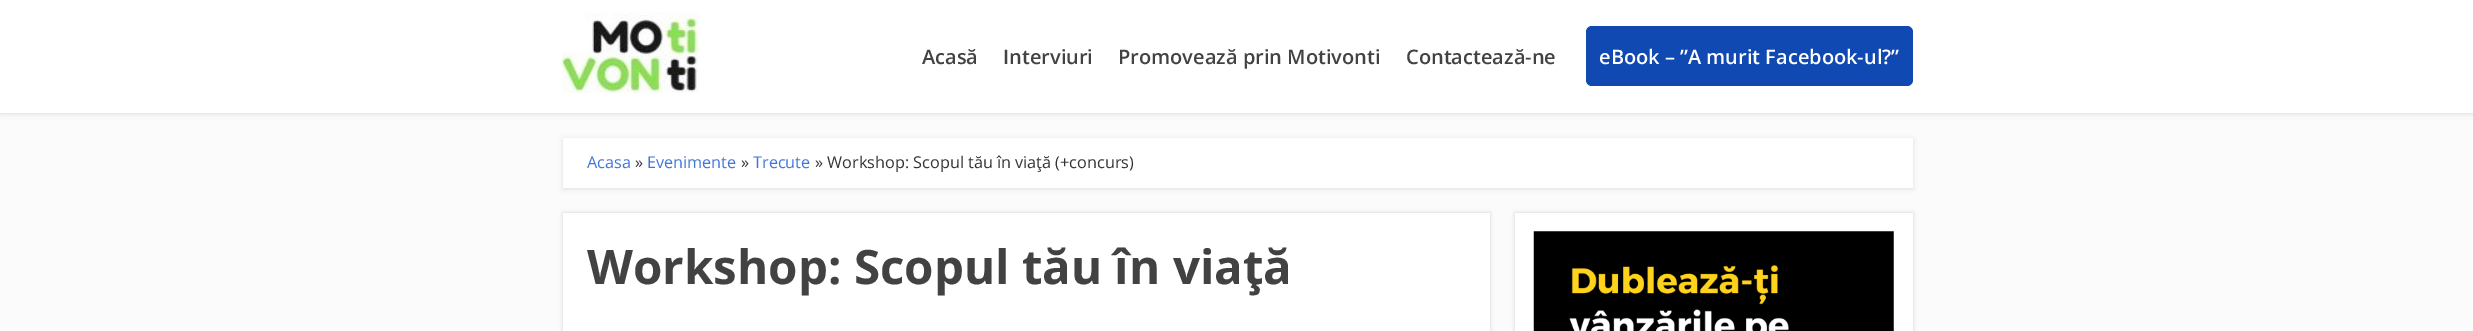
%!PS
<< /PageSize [2473 331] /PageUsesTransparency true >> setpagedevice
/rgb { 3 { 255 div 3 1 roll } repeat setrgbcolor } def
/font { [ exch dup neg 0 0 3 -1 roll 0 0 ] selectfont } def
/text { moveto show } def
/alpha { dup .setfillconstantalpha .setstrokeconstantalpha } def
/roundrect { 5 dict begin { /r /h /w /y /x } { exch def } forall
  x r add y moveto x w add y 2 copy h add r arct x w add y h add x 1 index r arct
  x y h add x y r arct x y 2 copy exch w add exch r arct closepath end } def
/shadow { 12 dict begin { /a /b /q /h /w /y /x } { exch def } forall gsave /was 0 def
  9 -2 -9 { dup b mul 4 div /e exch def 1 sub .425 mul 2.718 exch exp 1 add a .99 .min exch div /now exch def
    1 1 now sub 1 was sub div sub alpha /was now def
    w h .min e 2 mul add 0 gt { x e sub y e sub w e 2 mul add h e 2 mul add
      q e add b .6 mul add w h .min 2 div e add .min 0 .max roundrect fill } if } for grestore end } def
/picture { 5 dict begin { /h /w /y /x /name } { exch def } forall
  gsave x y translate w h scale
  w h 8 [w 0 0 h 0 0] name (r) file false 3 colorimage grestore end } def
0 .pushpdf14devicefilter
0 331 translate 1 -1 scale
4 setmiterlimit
251 251 251 rgb
0 0 2473 331 rectfill
223 221 221 rgb
0 1 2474 113 0 2.5 1 shadow
255 255 255 rgb
0 0 2473 113 rectfill
(img_01.rgb) 562 12 137 82 picture
15 73 177 rgb
1586 26 327 60 6 roundrect fill
223 221 221 rgb
563 139 1350 50 0 2.5 1 shadow
255 255 255 rgb
563 138 1350 50 rectfill
1 1 1 rgb
563 213 927 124 0 2 0.16 shadow
255 255 255 rgb
563 213 927 118 rectfill
1 1 1 rgb
1515 213 398 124 0 2 0.16 shadow
255 255 255 rgb
1515 213 398 118 rectfill
(img_02.rgb) 1533 231 361 100 picture
/OpenSans-SemiBold 20 font
66 66 66 rgb
(Acasă) 922 64 text
(Interviuri) 1003 64 text
(Promovează prin Motivonti) 1118 64 text
(Contactează-ne) 1406 64 text
255 255 255 rgb
(eBook – ”A murit Facebook-ul?”) 1599 64 text
/OpenSans-Regular 16.25 font
65 116 220 rgb
(Acasa) 587 168 text
51 51 51 rgb
(») 635 168 text
65 116 220 rgb
(Evenimente) 647 168 text
51 51 51 rgb
(») 741 168 text
65 116 220 rgb
(Trecute) 753 168 text
51 51 51 rgb
(» Workshop: Scopul tău în viaţă \(+concurs\)) 815 168 text
/OpenSans-Bold 47.5 font
66 66 66 rgb
(Workshop: Scopul tău în viaţă) 587 284 text
.poppdf14devicefilter showpage
